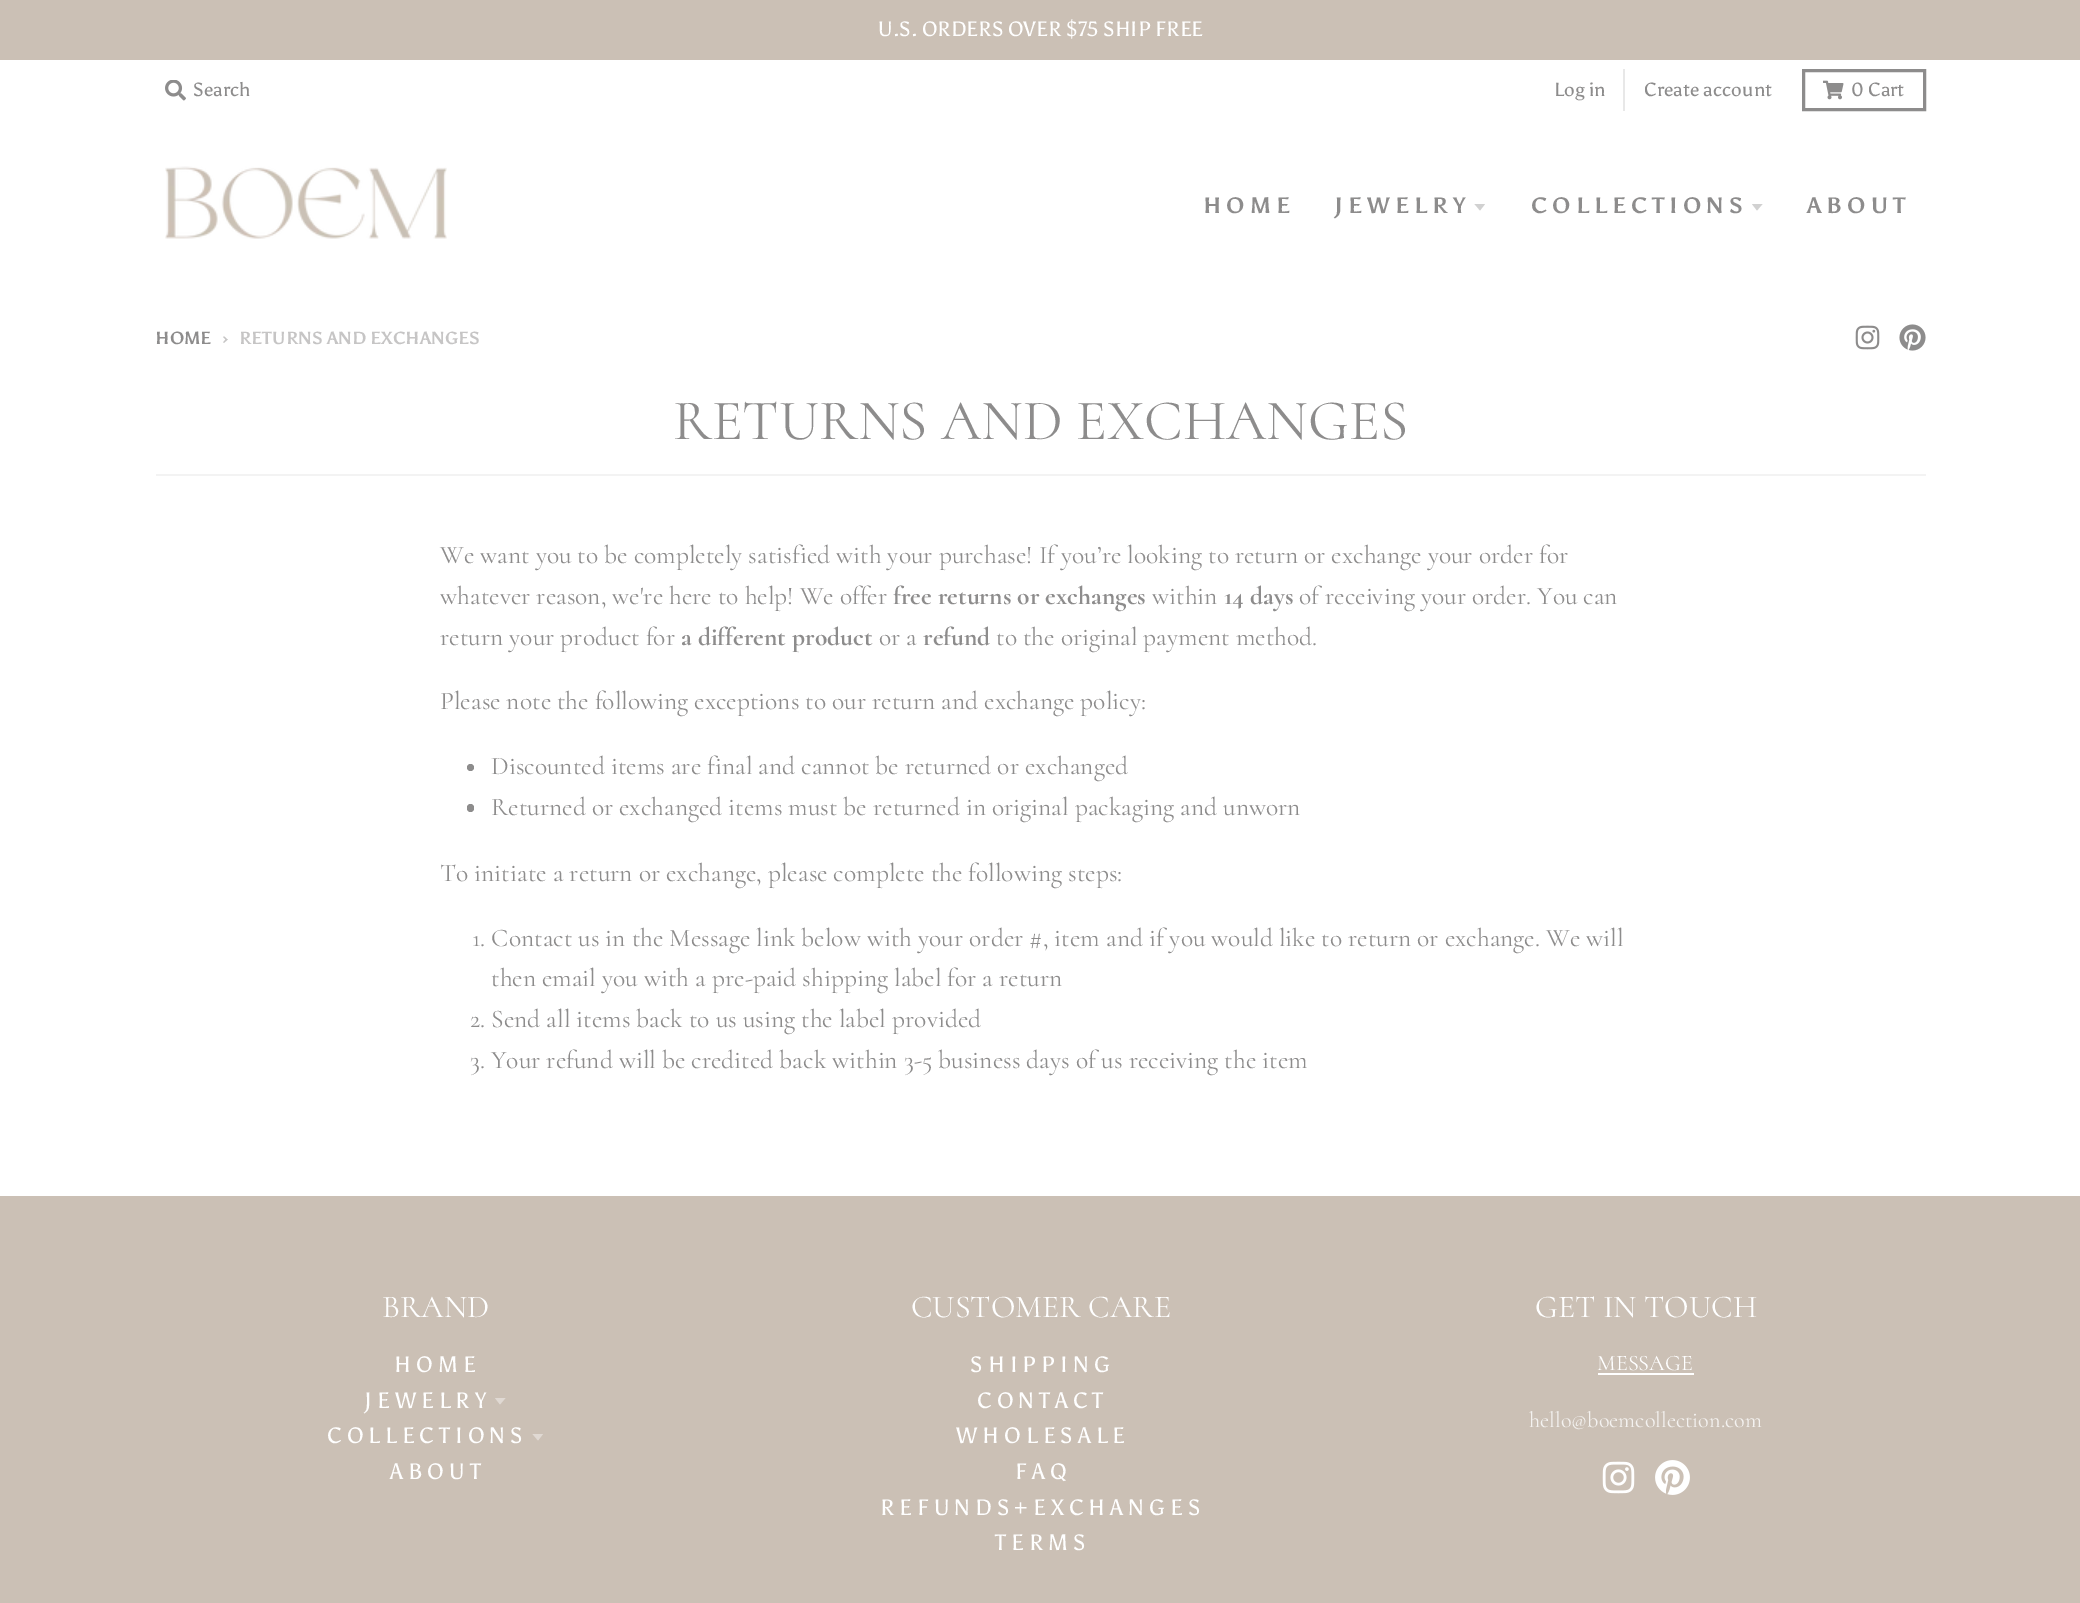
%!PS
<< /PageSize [2080 1603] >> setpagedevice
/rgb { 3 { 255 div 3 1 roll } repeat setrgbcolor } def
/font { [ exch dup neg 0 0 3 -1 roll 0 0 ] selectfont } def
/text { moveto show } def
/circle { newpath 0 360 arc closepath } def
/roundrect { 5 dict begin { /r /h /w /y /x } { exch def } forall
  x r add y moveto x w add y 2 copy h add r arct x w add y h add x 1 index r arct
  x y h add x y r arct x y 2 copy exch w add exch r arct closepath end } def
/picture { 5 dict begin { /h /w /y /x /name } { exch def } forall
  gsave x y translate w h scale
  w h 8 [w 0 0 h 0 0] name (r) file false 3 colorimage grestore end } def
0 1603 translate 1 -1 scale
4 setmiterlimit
255 255 255 rgb
0 0 2080 1603 rectfill
203 192 181 rgb
0 0 2080 60 rectfill
(img_01.rgb) 165 80 21 21 picture
232 232 232 rgb
1623 69 2 42 rectfill
141 140 140 rgb
3 setlinewidth
1803.5 70.5 121 39 rectstroke
(img_02.rgb) 1823 80 21 20 picture
(img_03.rgb) 165 166 282 73 picture
209 209 209 rgb
1474.5 204 moveto 5.5 6.5 rlineto 5 -6.5 rlineto closepath fill
1752 204 moveto 5 6.5 rlineto 5.5 -6.5 rlineto closepath fill
(img_04.rgb) 1855 325 25 25 picture
(img_05.rgb) 1899 324 27 27 picture
243 243 243 rgb
156 474 1770 2 rectfill
141 140 140 rgb
470.5 767.5 3.5 circle fill
467 804 7 8 3.5 roundrect fill
203 192 181 rgb
0 1196 2080 407 rectfill
224 217 211 rgb
495 1398 moveto 5 6.5 rlineto 5.5 -6.5 rlineto closepath fill
532.5 1434 moveto 5.5 6.5 rlineto 5 -6.5 rlineto closepath fill
255 255 255 rgb
1598 1373 96 2 rectfill
(img_06.rgb) 1602 1461 33 33 picture
(img_07.rgb) 1655 1460 35 35 picture
/Asul-Regular 20.75 font
(U.S. ORDERS OVER $75 SHIP FREE) 878 36 text
/Asul-Regular 19 font
141 140 140 rgb
(Search) 193 96 text
(Log in) 1554 96 text
(Create account) 1644 96 text
(0 Cart) 1851 96 text
/Asul-Bold 22.25 font
(H O M E) 1203 213 text
(J E W E L R Y) 1334 213 text
(C O L L E C T I O N S) 1531 213 text
(A B O U T) 1807 213 text
/Asul-Bold 17.5 font
(HOME) 155 344 text
198 197 197 rgb
(›) 222 344 text
(RETURNS AND EXCHANGES) 239 344 text
/Cormorant-Regular 57.4 font
141 140 140 rgb
(RETURNS AND EXCHANGES) 673 439 text
/Cormorant-Regular 25.5 font
(We want you to be completely satisfied with your purchase! If you’re looking to return or exchange your order for) 440 563 text
(whatever reason, we're here to help! We offer) 440 604 text
/Cormorant-Bold 25.5 font
(free returns or exchanges) 893 604 text
/Cormorant-Regular 25.5 font
(within) 1152 604 text
/Cormorant-Bold 25.5 font
(14 days) 1224 604 text
/Cormorant-Regular 25.5 font
(of receiving your order. You can) 1299 604 text
(return your product for) 440 645 text
/Cormorant-Bold 25.5 font
(a different product) 681 645 text
/Cormorant-Regular 25.5 font
(or a) 879 645 text
/Cormorant-Bold 25.5 font
(refund) 923 645 text
/Cormorant-Regular 25.5 font
(to the original payment method.) 996 645 text
(Please note the following exceptions to our return and exchange policy:) 440 709 text
(Discounted items are final and cannot be returned or exchanged) 491 774 text
(Returned or exchanged items must be returned in original packaging and unworn) 491 815 text
(To initiate a return or exchange, please complete the following steps:) 440 881 text
(1. Contact us in the Message link below with your order #, item and if you would like to return or exchange. We will) 472 946 text
(then email you with a pre-paid shipping label for a return) 491 986 text
(2. Send all items back to us using the label provided) 470 1027 text
(3. Your refund will be credited back within 3-5 business days of us receiving the item) 470 1068 text
/Cormorant-Regular 32 font
255 255 255 rgb
(BRAND) 382 1317 text
/Asul-Regular 22.25 font
(H O M E) 394 1372 text
(J E W E L R Y) 364 1408 text
(C O L L E C T I O N S) 327 1443 text
(A B O U T) 390 1479 text
/Cormorant-Regular 32 font
(CUSTOMER CARE) 911 1317 text
/Asul-Regular 22.25 font
(S H I P P I N G) 970 1372 text
(C O N T A C T) 977 1408 text
(W H O L E S A L E) 956 1443 text
(F A Q) 1015 1479 text
(R E F U N D S + E X C H A N G E S) 880 1515 text
(T E R M S) 995 1550 text
/Cormorant-Regular 32 font
(GET IN TOUCH) 1535 1317 text
/Cormorant-Regular 22.25 font
(MESSAGE) 1597 1370 text
244 242 240 rgb
(hello@boemcollection.com) 1529 1427 text
showpage
